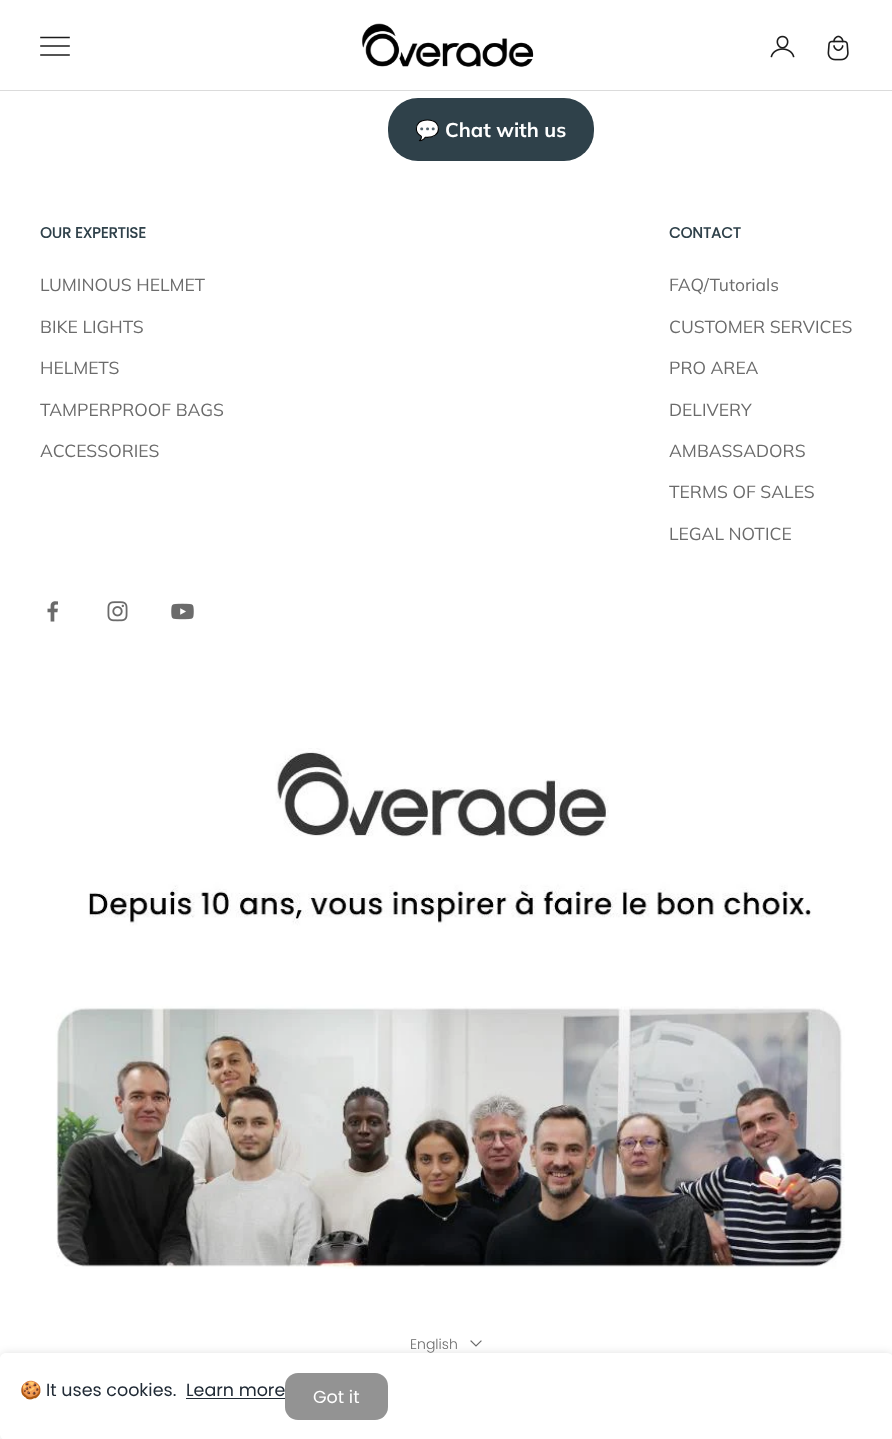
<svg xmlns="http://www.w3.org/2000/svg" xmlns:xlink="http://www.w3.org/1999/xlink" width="892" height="1439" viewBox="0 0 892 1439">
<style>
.cls-1{font:bold 20px Noto Color Emoji;fill:#ffffff}
.cls-2{font:bold 20px Muli;fill:#ffffff}
.cls-3{font:bold 15px Poppins;fill:#2f414a}
.cls-4{font:17.5px Muli;fill:#6b6b6b}
.cls-5{font:300 14px Poppins;fill:#6b6b6b}
.cls-6{font:17.5px Noto Color Emoji;fill:#212b36}
.cls-7{font:17.5px Poppins;fill:#212b36}
.cls-8{font:17.5px Poppins;fill:#ffffff}
</style>
<defs>
<clipPath id="clip1"><path d="M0 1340H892V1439H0ZM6 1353H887C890.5 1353 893 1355.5 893 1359V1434C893 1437.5 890.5 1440 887 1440H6C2.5 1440 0 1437.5 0 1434V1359C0 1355.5 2.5 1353 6 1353Z" clip-rule="evenodd"/></clipPath>
</defs>
<rect width="100%" height="100%" fill="#ffffff"/>
<rect fill="#dbdbdb" x="0" y="90" width="892" height="1"/>
<path fill="none" stroke="#1c1c1c" stroke-width="1.6" stroke-linecap="square" d="M41 55H69M41 46H69M41 37.5H69"/>
<image xlink:href="image0.png" x="362" y="23" width="172" height="44"/>
<image xlink:href="image1.png" x="770" y="35" width="25" height="23"/>
<image xlink:href="image2.png" x="827" y="35" width="22" height="26"/>
<rect fill="#2f414a" x="388" y="98" width="206" height="63" rx="30"/>
<image xlink:href="image3.png" x="47" y="601" width="11" height="21"/>
<image xlink:href="image4.png" x="107" y="601" width="21" height="21"/>
<image xlink:href="image5.png" x="171" y="603" width="23" height="17"/>
<image xlink:href="image6.png" x="55" y="748" width="790" height="521"/>
<path fill="none" stroke="#6b6b6b" stroke-width="1.2" stroke-linecap="square" d="M471 1341L476 1346L481 1341"/>
<g clip-path="url(#clip1)">
<rect fill="#000000" fill-opacity="0.12" filter="blur(4px)" x="0" y="1353" width="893" height="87" rx="6"/>
</g>
<rect fill="#212b36" x="186" y="1398" width="99" height="1"/>
<rect fill="#939393" x="285" y="1373" width="103" height="47" rx="13"/>
<text class="cls-1" x="415" y="137">💬</text>
<text class="cls-2" x="445" y="137">Chat with us</text>
<text class="cls-3" x="40" y="238">OUR EXPERTISE</text>
<text class="cls-4" x="40" y="291">LUMINOUS HELMET</text>
<text class="cls-4" x="40" y="333">BIKE LIGHTS</text>
<text class="cls-4" x="40" y="374">HELMETS</text>
<text class="cls-4" x="40" y="416">TAMPERPROOF BAGS</text>
<text class="cls-4" x="40" y="457">ACCESSORIES</text>
<text class="cls-3" x="669" y="238">CONTACT</text>
<text class="cls-4" x="669" y="291">FAQ/Tutorials</text>
<text class="cls-4" x="669" y="333">CUSTOMER SERVICES</text>
<text class="cls-4" x="669" y="374">PRO AREA</text>
<text class="cls-4" x="669" y="416">DELIVERY</text>
<text class="cls-4" x="669" y="457">AMBASSADORS</text>
<text class="cls-4" x="669" y="498">TERMS OF SALES</text>
<text class="cls-4" x="669" y="540">LEGAL NOTICE</text>
<text class="cls-5" x="410" y="1349">English</text>
<text class="cls-6" x="20" y="1396">🍪</text>
<text class="cls-7" x="46" y="1396">It uses cookies.</text>
<text class="cls-7" x="186" y="1396">Learn more</text>
<text class="cls-8" x="313" y="1403">Got it</text>
</svg>
